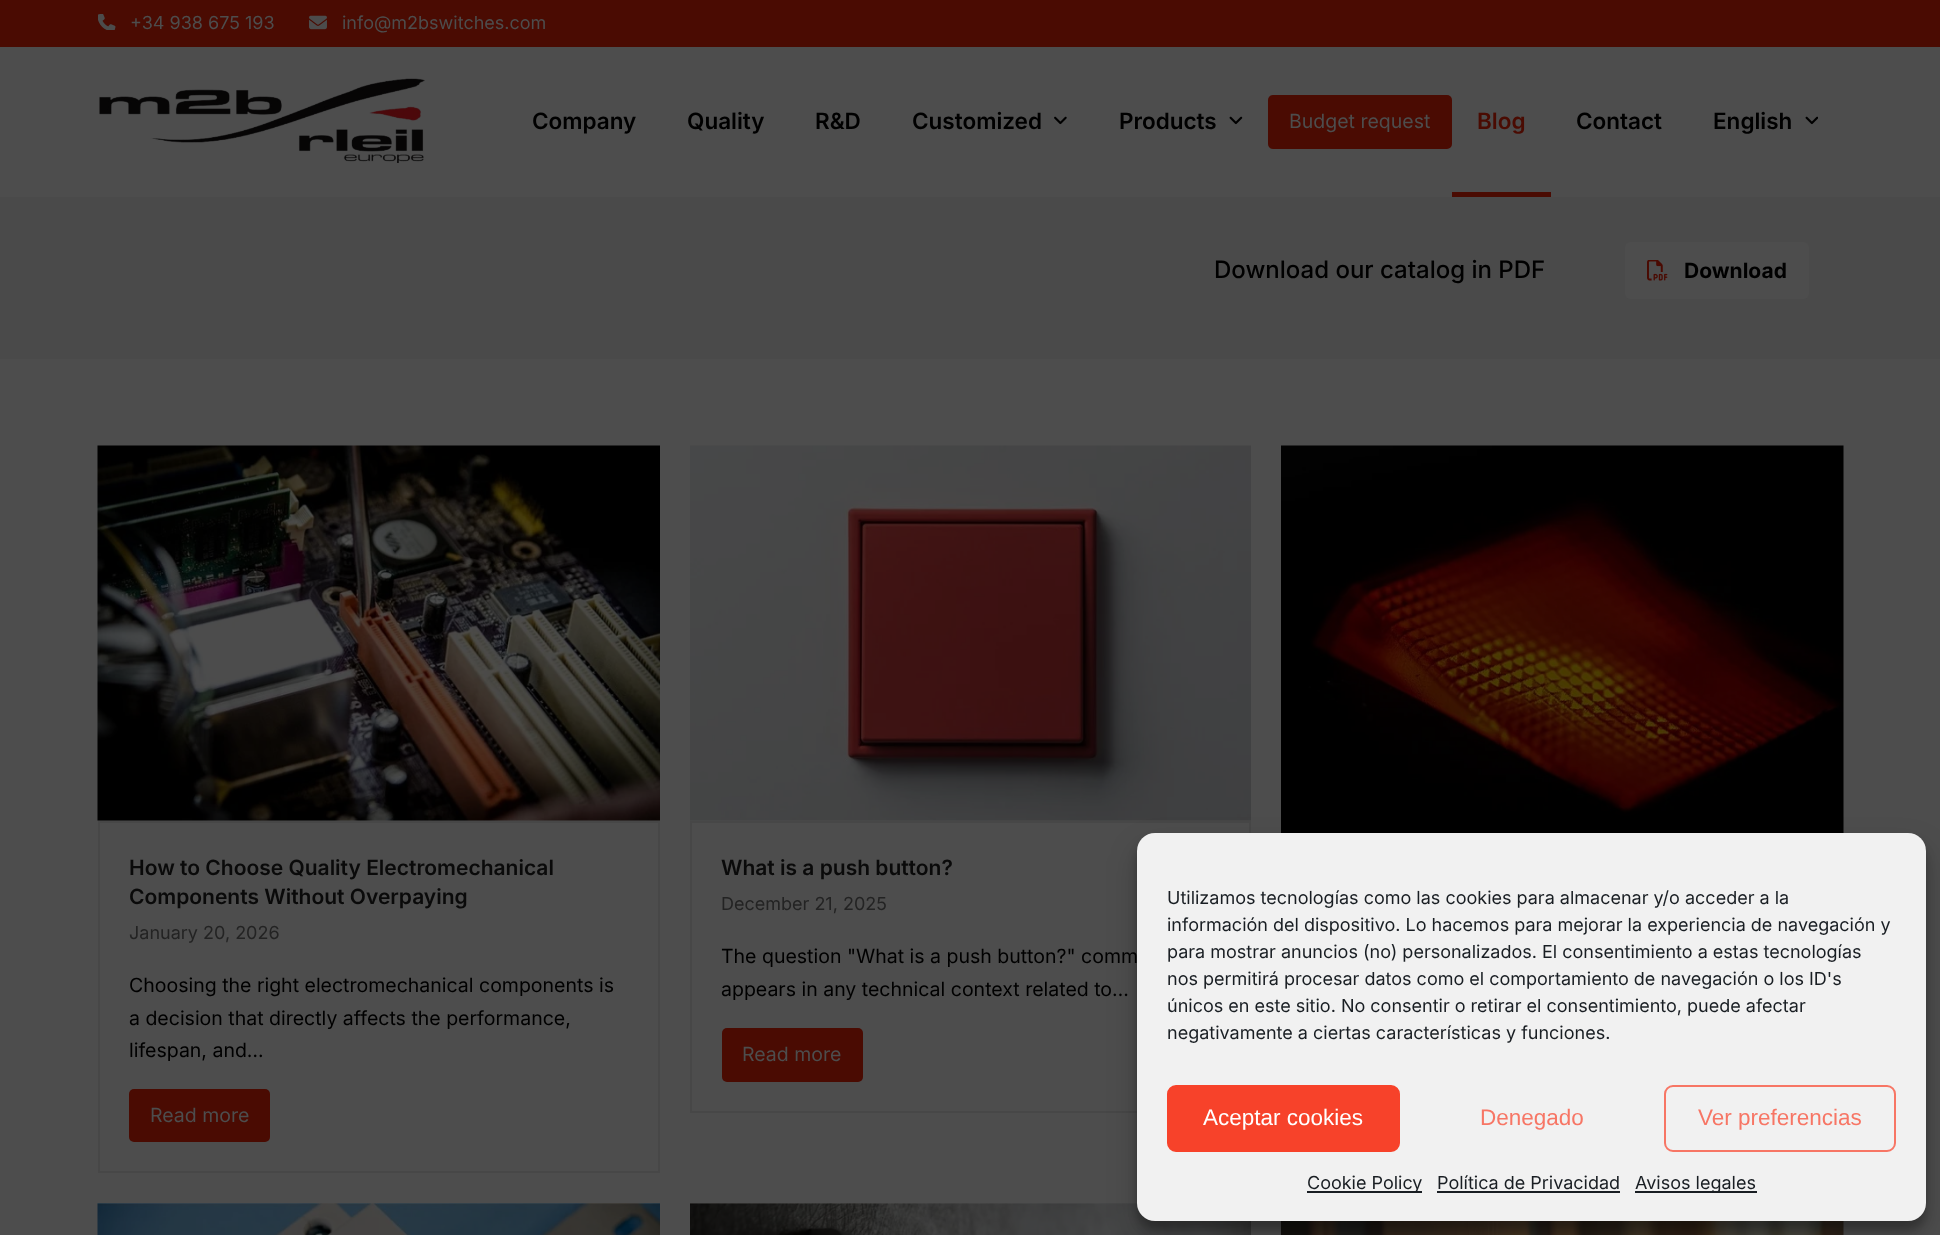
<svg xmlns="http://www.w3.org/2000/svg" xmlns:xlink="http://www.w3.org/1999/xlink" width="1940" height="1235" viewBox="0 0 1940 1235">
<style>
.cls-1{font:18px Inter;fill:#4d4d4d}
.cls-2{font:600 22.5px Inter;fill:#000000}
.cls-3{font:19.5px Inter;fill:#4d4d4d}
.cls-4{font:600 22.5px Inter;fill:#4a0b02}
.cls-5{font:500 24px Inter;fill:#000000}
.cls-6{font:bold 21px Inter;fill:#000000}
.cls-7{font:600 21px Inter;fill:#0a0a0a}
.cls-8{font:18px Inter;fill:#232323}
.cls-9{font:19.5px Inter;fill:#000000}
.cls-10{font:18px Inter;fill:#191e23}
.cls-11{font:22.5px Liberation Sans;fill:#ffffff}
.cls-12{font:22.5px Liberation Sans;fill:#f77665}
</style>
<rect width="100%" height="100%" fill="#4d4d4d"/>
<rect fill="#4a0b02" x="0" y="0" width="1940" height="47"/>
<image xlink:href="image0.png" x="98" y="14" width="18" height="16"/>
<image xlink:href="image1.png" x="309" y="15" width="18" height="15"/>
<image xlink:href="image2.png" x="99" y="78" width="326" height="85"/>
<image xlink:href="image3.png" x="1054" y="116" width="13" height="9"/>
<image xlink:href="image4.png" x="1229" y="116" width="14" height="9"/>
<rect fill="#4a0b02" x="1268" y="95" width="184" height="54" rx="5"/>
<rect fill="#4a0b02" x="1452" y="192" width="99" height="5"/>
<image xlink:href="image5.png" x="1805" y="116" width="13" height="9"/>
<rect fill="#4a4a4a" x="0" y="197" width="1940" height="162"/>
<rect fill="#4d4d4d" x="1625" y="242" width="184" height="57" rx="5"/>
<image xlink:href="image6.png" x="1647" y="260" width="21" height="21"/>
<image xlink:href="image7.png" x="1281" y="445" width="563" height="388"/>
<image xlink:href="image8.png" x="97" y="445" width="563" height="376"/>
<rect fill="none" stroke="#474747" stroke-width="2" x="99" y="822" width="560" height="350"/>
<rect fill="#4a0b02" x="129" y="1089" width="141" height="53" rx="5"/>
<image xlink:href="image9.png" x="690" y="445" width="561" height="376"/>
<rect fill="none" stroke="#474747" stroke-width="2" x="691" y="822" width="559" height="290"/>
<rect fill="#4a0b02" x="722" y="1028" width="141" height="54" rx="5"/>
<image xlink:href="image10.png" x="97" y="1203" width="563" height="32"/>
<image xlink:href="image11.png" x="690" y="1203" width="561" height="32"/>
<image xlink:href="image12.png" x="1281" y="1221" width="563" height="14"/>
<rect fill="#000000" fill-opacity="0.23" filter="blur(4.5px)" x="1137" y="842" width="789" height="388" rx="18"/>
<rect fill="#000000" fill-opacity="0.19" filter="blur(15px)" x="1137" y="848" width="789" height="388" rx="18"/>
<rect fill="#f1f1f1" x="1137" y="833" width="789" height="388" rx="18"/>
<rect fill="#f7422a" stroke="#f7422a" stroke-width="2" x="1168" y="1086" width="231" height="65" rx="8"/>
<rect fill="none" stroke="#f77665" stroke-width="2" x="1665" y="1086" width="230" height="65" rx="8"/>
<rect fill="#191e23" x="1307" y="1191" width="115" height="2"/>
<rect fill="#191e23" x="1437" y="1191" width="183" height="2"/>
<rect fill="#191e23" x="1635" y="1191" width="122" height="2"/>
<text class="cls-1" x="130" y="29">+34 938 675 193</text>
<text class="cls-1" x="342" y="29">info@m2bswitches.com</text>
<text class="cls-2" x="532" y="129">Company</text>
<text class="cls-2" x="687" y="129">Quality</text>
<text class="cls-2" x="815" y="129">R&amp;D</text>
<text class="cls-2" x="912" y="129">Customized</text>
<text class="cls-2" x="1119" y="129">Products</text>
<text class="cls-3" x="1289" y="128">Budget request</text>
<text class="cls-4" x="1477" y="129">Blog</text>
<text class="cls-2" x="1576" y="129">Contact</text>
<text class="cls-2" x="1713" y="129">English</text>
<text class="cls-5" x="1214" y="278">Download our catalog in PDF</text>
<text class="cls-6" x="1684" y="278">Download</text>
<text class="cls-7"><tspan x="129" y="875">How to Choose Quality Electromechanical</tspan><tspan x="129" y="904">Components Without Overpaying</tspan></text>
<text class="cls-8" x="129" y="939">January 20, 2026</text>
<text class="cls-9"><tspan x="129" y="992">Choosing the right electromechanical components is</tspan><tspan x="129" y="1025">a decision that directly affects the performance,</tspan><tspan x="129" y="1057">lifespan, and…</tspan></text>
<text class="cls-3" x="150" y="1122">Read more</text>
<text class="cls-7" x="721" y="875">What is a push button?</text>
<text class="cls-8" x="721" y="910">December 21, 2025</text>
<text class="cls-9"><tspan x="721" y="963">The question "What is a push button?" comm</tspan><tspan x="721" y="996">appears in any technical context related to…</tspan></text>
<text class="cls-3" x="742" y="1061">Read more</text>
<text class="cls-10"><tspan x="1167" y="904">Utilizamos tecnologías como las cookies para almacenar y/o acceder a la</tspan><tspan x="1167" y="931">información del dispositivo. Lo hacemos para mejorar la experiencia de navegación y</tspan><tspan x="1167" y="958">para mostrar anuncios (no) personalizados. El consentimiento a estas tecnologías</tspan><tspan x="1167" y="985">nos permitirá procesar datos como el comportamiento de navegación o los ID's</tspan><tspan x="1167" y="1012">únicos en este sitio. No consentir o retirar el consentimiento, puede afectar</tspan><tspan x="1167" y="1039">negativamente a ciertas características y funciones.</tspan></text>
<text class="cls-11" x="1203" y="1125">Aceptar cookies</text>
<text class="cls-12" x="1480" y="1125">Denegado</text>
<text class="cls-12" x="1698" y="1125">Ver preferencias</text>
<text class="cls-10" x="1307" y="1189">Cookie Policy</text>
<text class="cls-10" x="1437" y="1189">Política de Privacidad</text>
<text class="cls-10" x="1635" y="1189">Avisos legales</text>
</svg>
